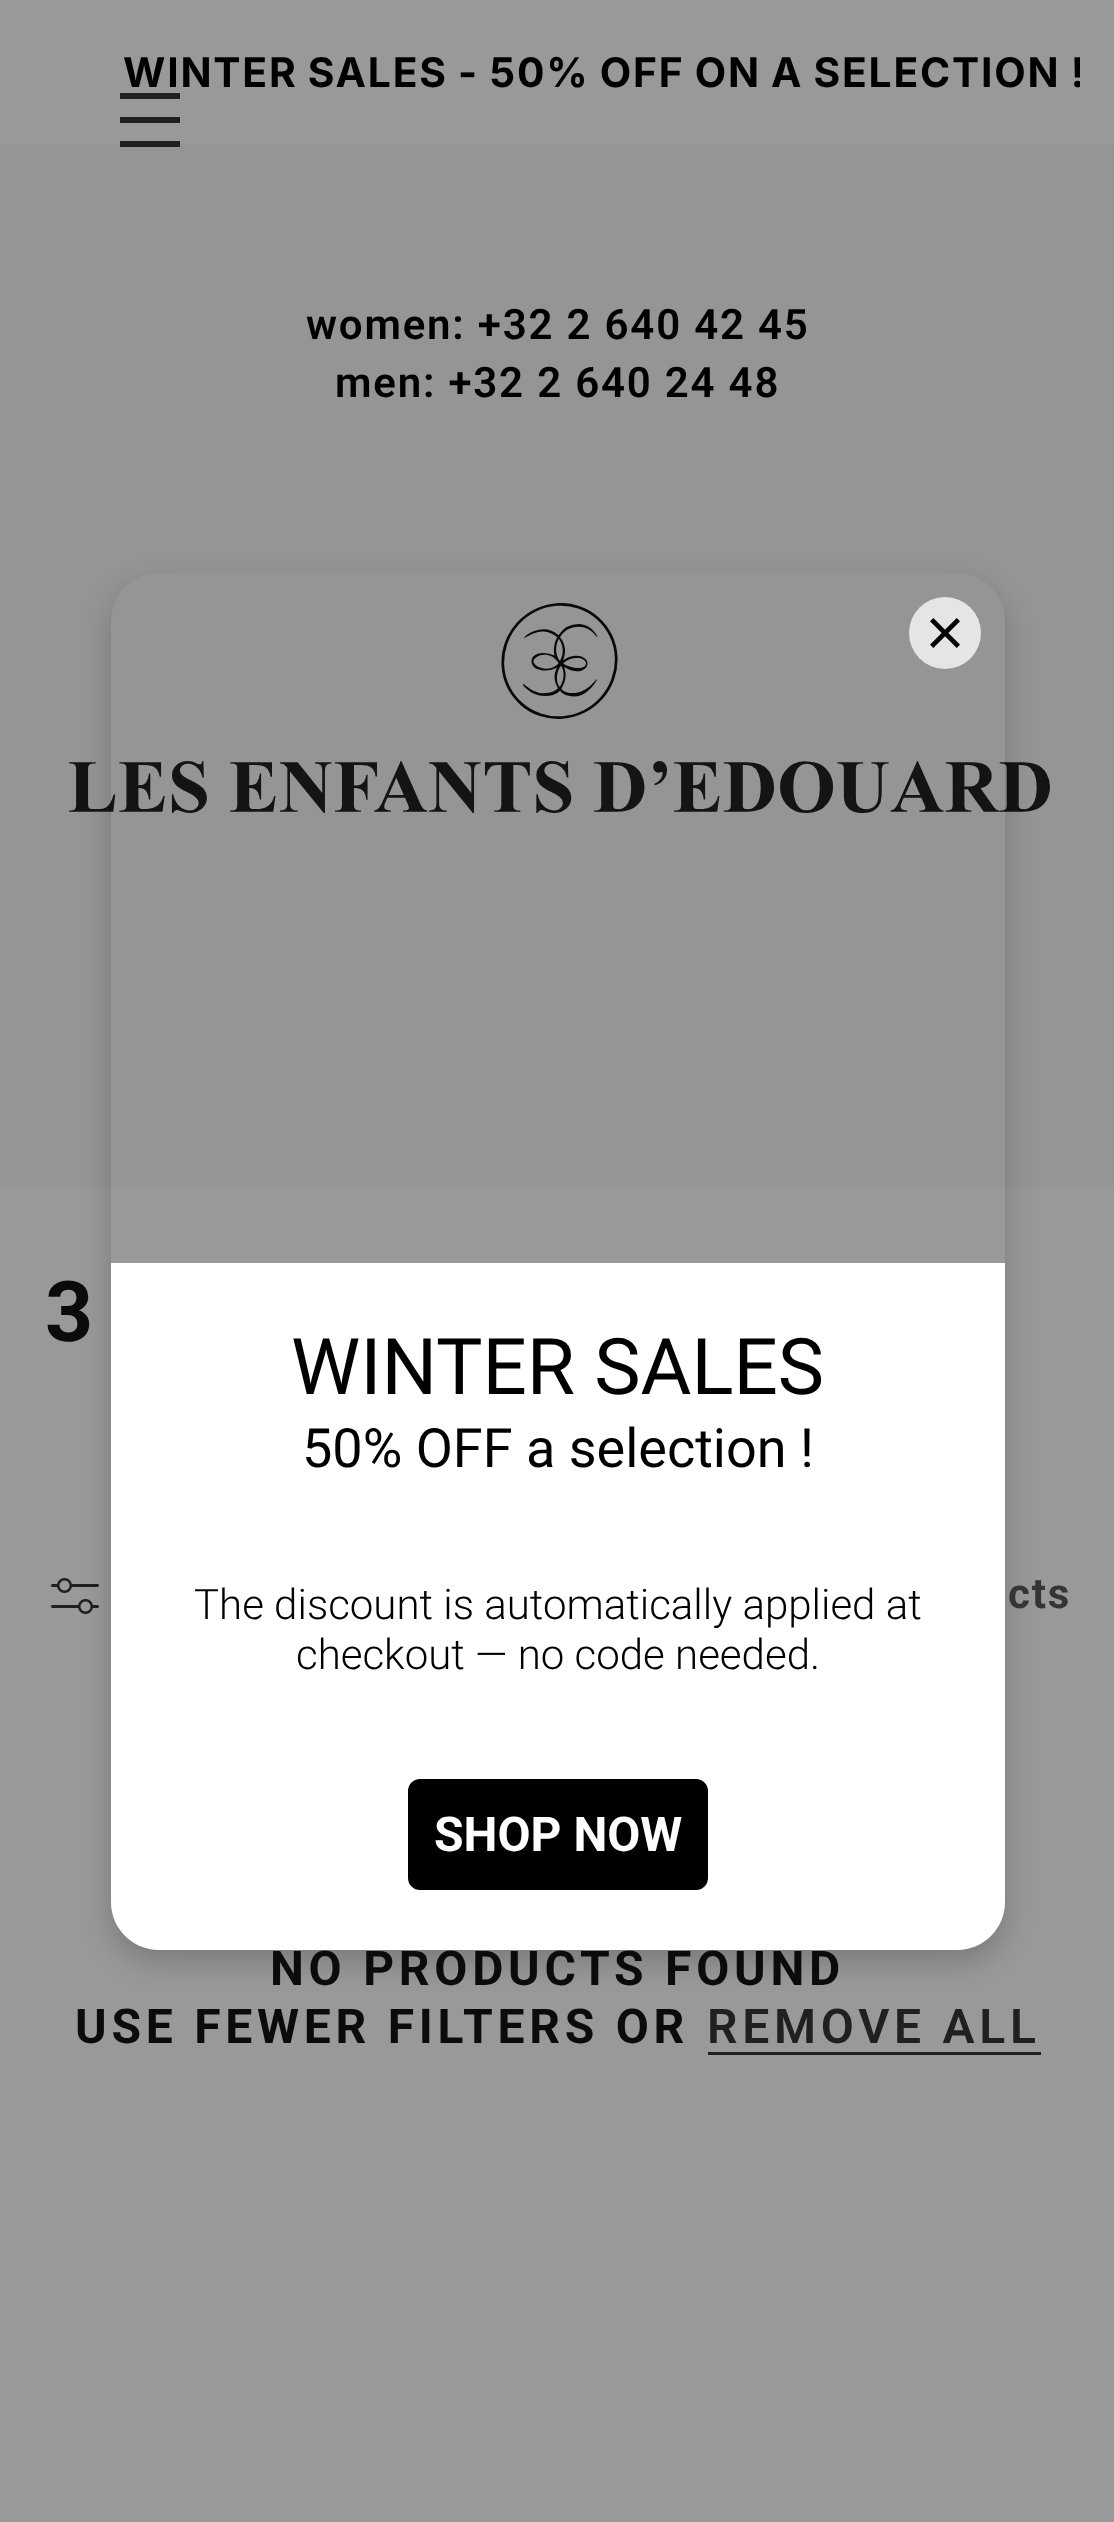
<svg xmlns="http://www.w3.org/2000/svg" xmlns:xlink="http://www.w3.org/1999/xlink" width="1114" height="2522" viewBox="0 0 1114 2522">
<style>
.cls-1{font:bold 40.8px Inter;letter-spacing:1.8px;fill:#000000}
.cls-2{font:600 42px Roboto;letter-spacing:1.8px;fill:#000000}
.cls-3{font:bold 84px Roboto;letter-spacing:4px;fill:#0b0b0b}
.cls-4{font:bold 42px Roboto;letter-spacing:1.8px;fill:#353535}
.cls-5{font:bold 48px Roboto;letter-spacing:4.75px;fill:#0b0b0b}
.cls-6{font:600 48px Roboto;letter-spacing:4.75px;fill:#202020}
.cls-7{font:78px Roboto;fill:#000000}
.cls-8{font:54px Roboto;fill:#000000}
.cls-9{font:300 42px Roboto;fill:#000000}
.cls-10{font:bold 48px Roboto;fill:#ffffff}
</style>
<defs>
<clipPath id="clip1"><path d="M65 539H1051V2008H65ZM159 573H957C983.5 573 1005 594.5 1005 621V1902C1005 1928.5 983.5 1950 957 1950H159C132.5 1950 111 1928.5 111 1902V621C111 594.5 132.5 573 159 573Z" clip-rule="evenodd"/></clipPath>
<clipPath id="clip2"><rect x="36" y="48" width="1044" height="48"/></clipPath>
</defs>
<rect width="100%" height="100%" fill="#999999"/>
<rect fill="#959595" x="0" y="144" width="1114" height="1044"/>
<rect fill="#1f1f1f" x="120" y="117" width="60" height="6"/>
<rect fill="#1f1f1f" x="120" y="93" width="60" height="6"/>
<rect fill="#1f1f1f" x="120" y="141" width="60" height="6"/>
<image xlink:href="image0.png" x="69" y="603" width="981" height="210"/>
<image xlink:href="image1.png" x="51" y="1578" width="48" height="36"/>
<rect fill="#202020" x="708" y="2052" width="333" height="3"/>
<g clip-path="url(#clip1)">
<rect fill="#000000" fill-opacity="0.2" filter="blur(15px)" x="111" y="585" width="894" height="1377" rx="48"/>
</g>
<circle fill="#e5e5e5" cx="945" cy="633" r="36"/>
<image xlink:href="image2.png" x="930" y="618" width="30" height="30"/>
<path fill="#ffffff" d="M111 1263H1005V1902C1005 1928.5 983.5 1950 957 1950H159C132.5 1950 111 1928.5 111 1902Z"/>
<rect fill="#000000" stroke="#000000" stroke-width="3" x="409.5" y="1780.5" width="297" height="108" rx="10.5"/>
<g clip-path="url(#clip2)">
<text class="cls-1" x="123" y="87" word-spacing="-1.25">WINTER SALES - 50% OFF ON A SELECTION !</text>
</g>
<text class="cls-2" x="306" y="339">women: +32 2 640 42 45</text>
<text class="cls-2" x="335" y="397">men: +32 2 640 24 48</text>
<text class="cls-3" x="45" y="1341">3</text>
<text class="cls-4" x="1008" y="1608">cts</text>
<text class="cls-5" x="270" y="1985">NO PRODUCTS FOUND</text>
<text class="cls-5" x="75" y="2043">USE FEWER FILTERS OR</text>
<text class="cls-6" x="707" y="2043">REMOVE ALL</text>
<text class="cls-7" x="291" y="1394">WINTER SALES</text>
<text class="cls-8" x="302" y="1467">50% OFF a selection !</text>
<text class="cls-9" x="194" y="1619">The discount is automatically applied at</text>
<text class="cls-9" x="296" y="1669">checkout — no code needed.</text>
<text class="cls-10" x="434" y="1851">SHOP NOW</text>
</svg>
